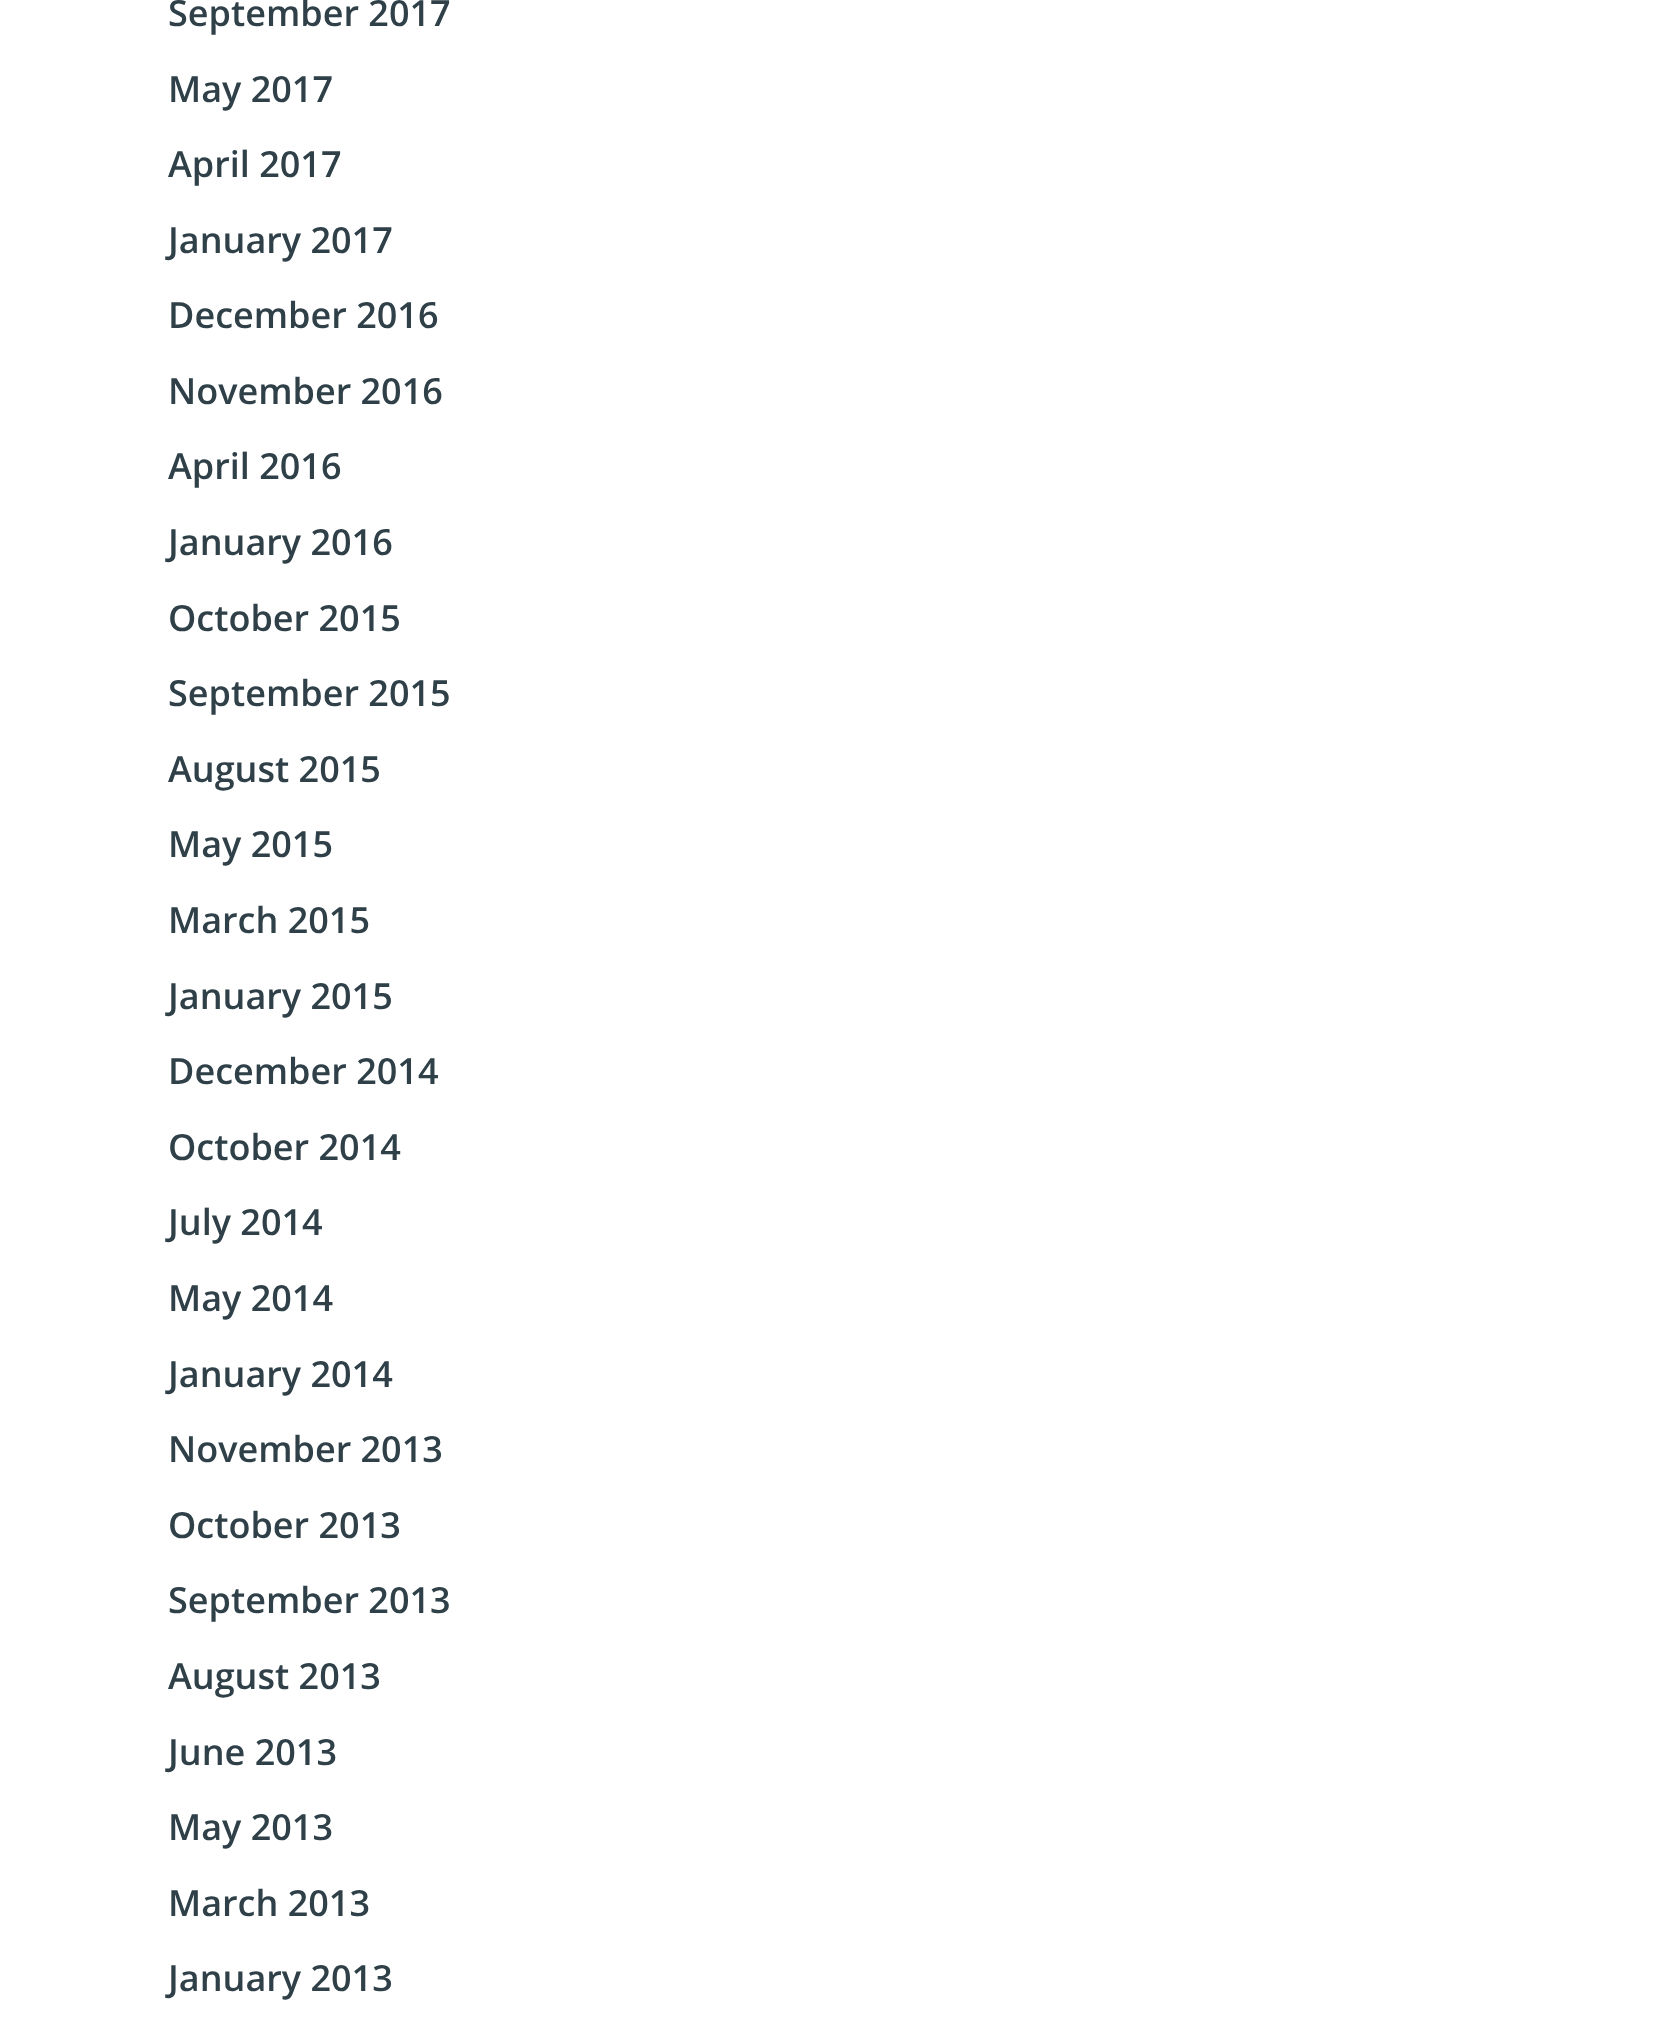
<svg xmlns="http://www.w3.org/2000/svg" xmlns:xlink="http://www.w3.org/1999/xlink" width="1679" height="2036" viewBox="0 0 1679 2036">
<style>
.cls-1{font:600 36px Open Sans;fill:#2f4048}
</style>
<rect width="100%" height="100%" fill="#ffffff"/>
<text class="cls-1" x="168" y="26">September 2017</text>
<text class="cls-1" x="168" y="102">May 2017</text>
<text class="cls-1" x="168" y="177">April 2017</text>
<text class="cls-1" x="168" y="253">January 2017</text>
<text class="cls-1" x="168" y="328">December 2016</text>
<text class="cls-1" x="168" y="404">November 2016</text>
<text class="cls-1" x="168" y="479">April 2016</text>
<text class="cls-1" x="168" y="555">January 2016</text>
<text class="cls-1" x="168" y="631">October 2015</text>
<text class="cls-1" x="168" y="706">September 2015</text>
<text class="cls-1" x="168" y="782">August 2015</text>
<text class="cls-1" x="168" y="857">May 2015</text>
<text class="cls-1" x="168" y="933">March 2015</text>
<text class="cls-1" x="168" y="1009">January 2015</text>
<text class="cls-1" x="168" y="1084">December 2014</text>
<text class="cls-1" x="168" y="1160">October 2014</text>
<text class="cls-1" x="168" y="1235">July 2014</text>
<text class="cls-1" x="168" y="1311">May 2014</text>
<text class="cls-1" x="168" y="1387">January 2014</text>
<text class="cls-1" x="168" y="1462">November 2013</text>
<text class="cls-1" x="168" y="1538">October 2013</text>
<text class="cls-1" x="168" y="1613">September 2013</text>
<text class="cls-1" x="168" y="1689">August 2013</text>
<text class="cls-1" x="168" y="1765">June 2013</text>
<text class="cls-1" x="168" y="1840">May 2013</text>
<text class="cls-1" x="168" y="1916">March 2013</text>
<text class="cls-1" x="168" y="1991">January 2013</text>
</svg>
